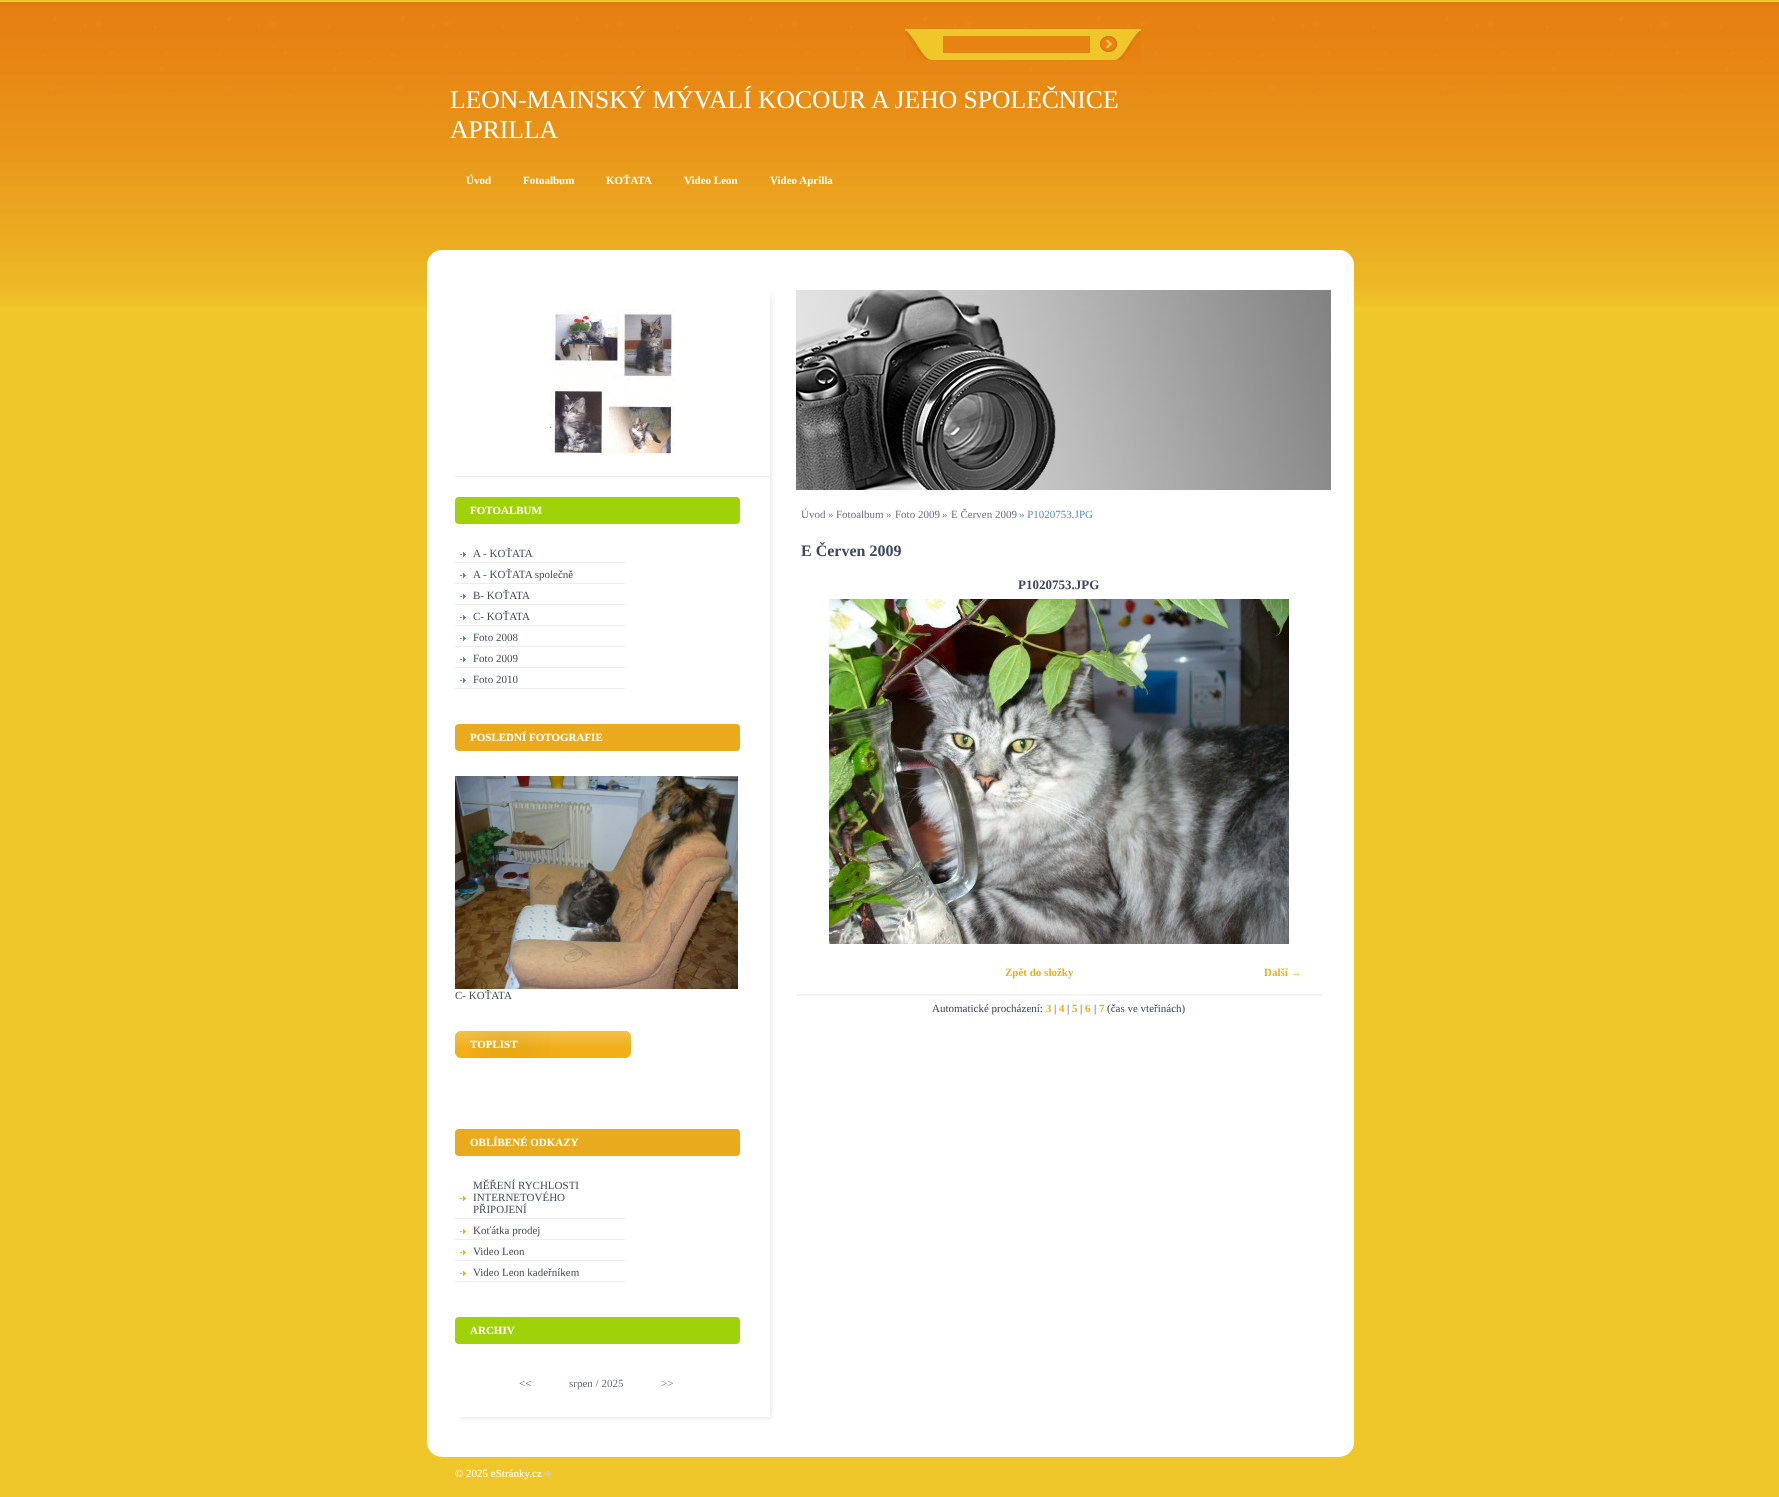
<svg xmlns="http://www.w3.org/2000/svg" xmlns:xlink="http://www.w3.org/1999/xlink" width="1779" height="1497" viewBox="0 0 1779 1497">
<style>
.cls-1{font:25.6px Liberation Serif;fill:#ffffff}
.cls-2{font:bold 11px Liberation Serif;fill:#ffffff}
.cls-3{font:11px Liberation Serif;fill:#434d5a}
.cls-4{font:11px Liberation Serif;fill:#6a6e79}
.cls-5{font:11px Liberation Serif;fill:#69708a}
.cls-6{font:11px Liberation Serif;fill:#578dbb}
.cls-7{font:bold 16px Liberation Serif;fill:#39475f}
.cls-8{font:bold 13px Liberation Serif;fill:#39475f}
.cls-9{font:bold 11px Liberation Serif;fill:#f1ae19}
.cls-10{font:11px Liberation Serif;fill:#39475f}
.cls-11{font:11px Liberation Serif;fill:#ffffff}
</style>
<defs>
<clipPath id="clip1"><path d="M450 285H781V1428H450ZM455 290H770V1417H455Z" clip-rule="evenodd"/></clipPath>
</defs>
<rect width="100%" height="100%" fill="#efc72a"/>
<image xlink:href="image0.png" x="0" y="2" width="1779" height="304"/>
<rect fill="#ffffff" x="427" y="250" width="927" height="1207" rx="15"/>
<g clip-path="url(#clip1)">
<rect fill="#e6e5e5" filter="blur(3px)" x="460" y="295" width="311" height="1123"/>
</g>
<rect fill="#ededeb" x="455" y="476" width="315" height="1"/>
<image xlink:href="image1.png" x="550" y="309" width="125" height="148"/>
<image xlink:href="image2.png" x="905" y="29" width="236" height="31"/>
<rect fill="#e78312" x="943" y="36" width="147" height="17"/>
<image xlink:href="image3.png" x="1100" y="36" width="17" height="16"/>
<rect fill="#a0d20a" x="455" y="497" width="285" height="27" rx="4"/>
<image xlink:href="image4.png" x="460" y="552" width="6" height="5"/>
<rect fill="#ededeb" x="455" y="562" width="170" height="1"/>
<image xlink:href="image4.png" x="460" y="573" width="6" height="5"/>
<rect fill="#ededeb" x="455" y="583" width="170" height="1"/>
<image xlink:href="image4.png" x="460" y="594" width="6" height="5"/>
<rect fill="#ededeb" x="455" y="604" width="170" height="1"/>
<image xlink:href="image4.png" x="460" y="615" width="6" height="5"/>
<rect fill="#ededeb" x="455" y="625" width="170" height="1"/>
<image xlink:href="image4.png" x="460" y="636" width="6" height="5"/>
<rect fill="#ededeb" x="455" y="646" width="170" height="1"/>
<image xlink:href="image4.png" x="460" y="657" width="6" height="5"/>
<rect fill="#ededeb" x="455" y="667" width="170" height="1"/>
<image xlink:href="image4.png" x="460" y="678" width="6" height="5"/>
<rect fill="#ededeb" x="455" y="688" width="170" height="1"/>
<rect fill="#e9aa1d" x="455" y="724" width="285" height="27" rx="4"/>
<image xlink:href="image5.png" x="455" y="776" width="283" height="213"/>
<image xlink:href="image6.png" x="455" y="1031" width="176" height="27"/>
<rect fill="#e9aa1d" x="455" y="1129" width="285" height="27" rx="4"/>
<image xlink:href="image7.png" x="460" y="1196" width="6" height="5"/>
<rect fill="#ededeb" x="455" y="1218" width="170" height="1"/>
<image xlink:href="image7.png" x="460" y="1229" width="6" height="5"/>
<rect fill="#ededeb" x="455" y="1239" width="170" height="1"/>
<image xlink:href="image7.png" x="460" y="1250" width="6" height="5"/>
<rect fill="#ededeb" x="455" y="1260" width="170" height="1"/>
<image xlink:href="image7.png" x="460" y="1271" width="6" height="5"/>
<rect fill="#ededeb" x="455" y="1281" width="170" height="1"/>
<rect fill="#a0d20a" x="455" y="1317" width="285" height="27" rx="4"/>
<image xlink:href="image8.png" x="796" y="290" width="535" height="200"/>
<image xlink:href="image9.png" x="829" y="599" width="460" height="345"/>
<rect fill="#f3f3f3" x="796" y="994" width="526" height="2"/>
<image xlink:href="image10.png" x="543" y="1470" width="9" height="8"/>
<text class="cls-1"><tspan x="450" y="108">LEON-MAINSKÝ MÝVALÍ KOCOUR A JEHO SPOLEČNICE</tspan><tspan x="450" y="138">APRILLA</tspan></text>
<text class="cls-2" x="466" y="184">Úvod</text>
<text class="cls-2" x="523" y="184">Fotoalbum</text>
<text class="cls-2" x="606" y="184">KOŤATA</text>
<text class="cls-2" x="684" y="184">Video Leon</text>
<text class="cls-2" x="770" y="184">Video Aprilla</text>
<text class="cls-2" x="470" y="514">FOTOALBUM</text>
<text class="cls-3"><tspan x="473" y="557">A - KOŤATA</tspan><tspan x="473" y="578">A - KOŤATA společně</tspan><tspan x="473" y="599">B- KOŤATA</tspan><tspan x="473" y="620">C- KOŤATA</tspan><tspan x="473" y="641">Foto 2008</tspan><tspan x="473" y="662">Foto 2009</tspan><tspan x="473" y="683">Foto 2010</tspan></text>
<text class="cls-2" x="470" y="741">POSLEDNÍ FOTOGRAFIE</text>
<text class="cls-3" x="455" y="999">C- KOŤATA</text>
<text class="cls-2" x="470" y="1048">TOPLIST</text>
<text class="cls-2" x="470" y="1146">OBLÍBENÉ ODKAZY</text>
<text class="cls-3"><tspan x="473" y="1189">MĚŘENÍ RYCHLOSTI</tspan><tspan x="473" y="1201">INTERNETOVÉHO</tspan><tspan x="473" y="1213">PŘIPOJENÍ</tspan><tspan x="473" y="1234">Koťátka prodej</tspan><tspan x="473" y="1255">Video Leon</tspan><tspan x="473" y="1276">Video Leon kadeřníkem</tspan></text>
<text class="cls-2" x="470" y="1334">ARCHIV</text>
<text class="cls-3" x="519" y="1387">&lt;&lt;</text>
<text class="cls-4" x="569" y="1387">srpen / 2025</text>
<text class="cls-4" x="661" y="1387">&gt;&gt;</text>
<text class="cls-5" x="801" y="518">Úvod</text>
<text class="cls-6" x="828" y="518">»</text>
<text class="cls-5" x="836" y="518">Fotoalbum</text>
<text class="cls-6" x="886" y="518">»</text>
<text class="cls-5" x="895" y="518">Foto 2009</text>
<text class="cls-6" x="942" y="518">»</text>
<text class="cls-5" x="951" y="518">E Červen 2009</text>
<text class="cls-6" x="1019" y="518">» P1020753.JPG</text>
<text class="cls-7" x="801" y="556">E Červen 2009</text>
<text class="cls-8" x="1018" y="589">P1020753.JPG</text>
<text class="cls-9" x="1005" y="976">Zpět do složky</text>
<text class="cls-9" x="1264" y="976">Další →</text>
<text class="cls-10" x="932" y="1012">Automatické procházení:</text>
<text class="cls-9" x="1046" y="1012">3</text>
<text class="cls-10" x="1054" y="1012">|</text>
<text class="cls-9" x="1059" y="1012">4</text>
<text class="cls-10" x="1067" y="1012">|</text>
<text class="cls-9" x="1072" y="1012">5</text>
<text class="cls-10" x="1080" y="1012">|</text>
<text class="cls-9" x="1085" y="1012">6</text>
<text class="cls-10" x="1094" y="1012">|</text>
<text class="cls-9" x="1099" y="1012">7</text>
<text class="cls-10" x="1107" y="1012">(čas ve vteřinách)</text>
<text class="cls-11" x="455" y="1477">© 2025 eStránky.cz</text>
</svg>
